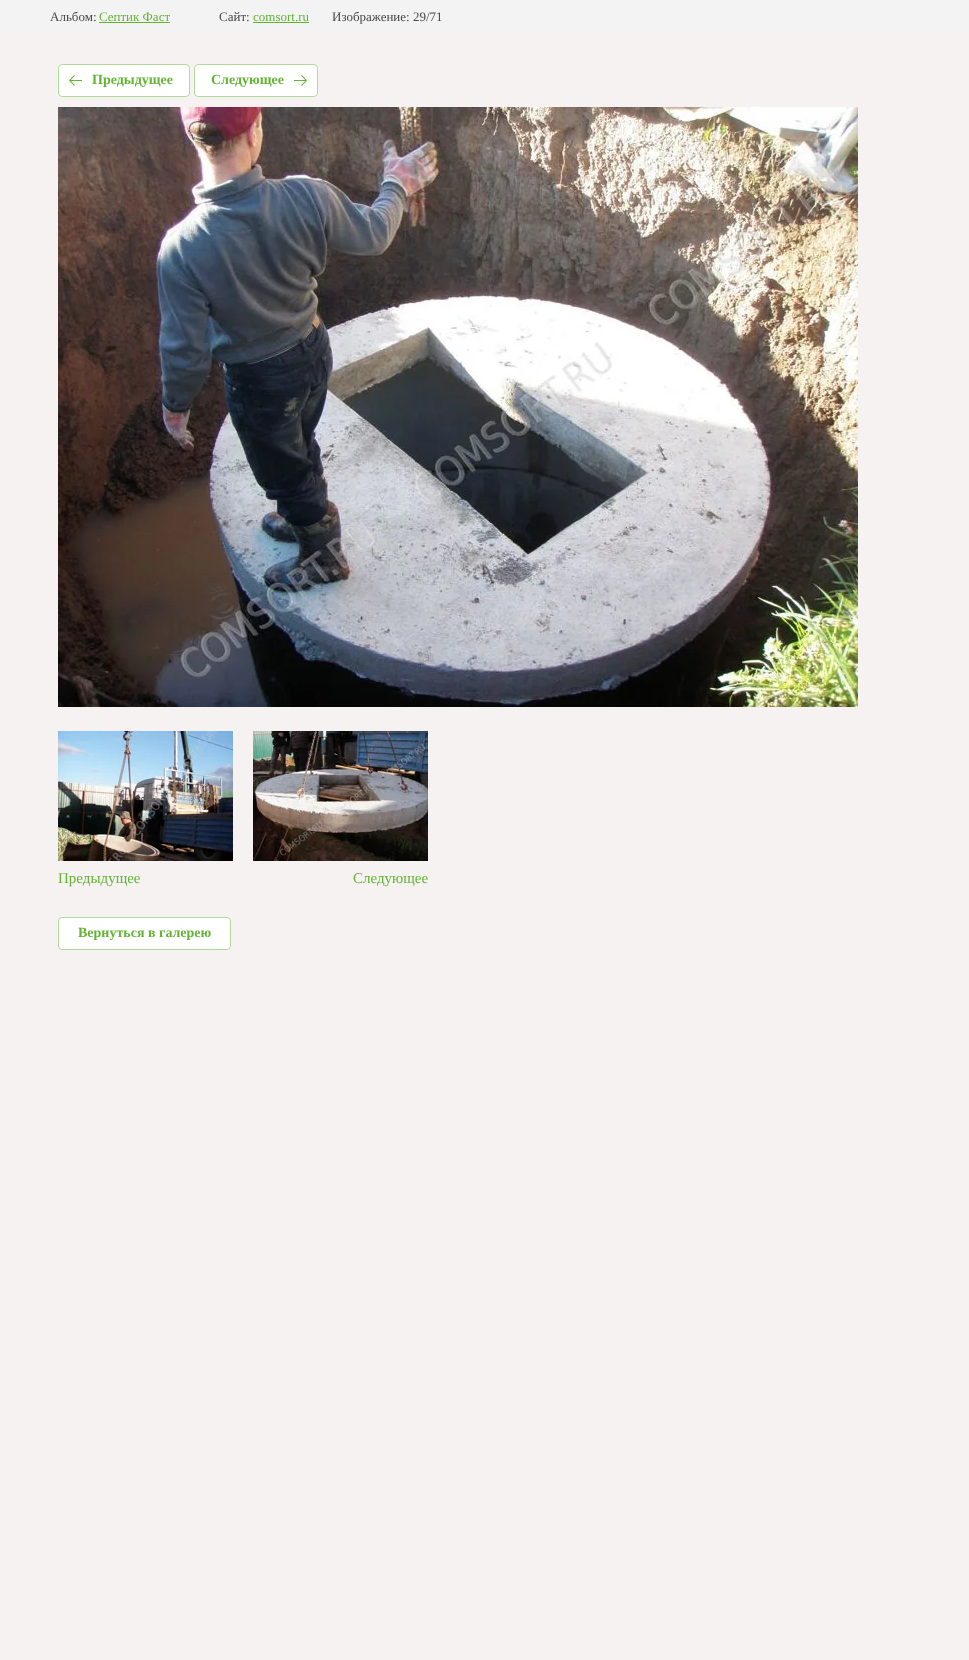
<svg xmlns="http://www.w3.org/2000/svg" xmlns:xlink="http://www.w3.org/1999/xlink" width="969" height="1660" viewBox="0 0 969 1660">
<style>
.cls-1{font:13px Liberation Serif;fill:#484848}
.cls-2{font:13px Liberation Serif;fill:#63b435}
.cls-3{font:bold 14px Liberation Serif;fill:#63b435}
.cls-4{font:15px Liberation Serif;fill:#63b435}
</style>
<rect width="100%" height="100%" fill="#f6f2f2"/>
<rect fill="#f3f3f3" x="0" y="0" width="969" height="32"/>
<rect fill="#63b435" x="99" y="22" width="71" height="1"/>
<rect fill="#63b435" x="253" y="22" width="56" height="1"/>
<rect fill="#ffffff" x="58" y="64" width="132" height="33" rx="4"/>
<rect fill="none" stroke="#63b435" stroke-opacity="0.5" x="58.5" y="64.5" width="131" height="32" rx="3.5"/>
<image xlink:href="image0.png" x="69" y="75" width="13" height="11"/>
<rect fill="#ffffff" x="194" y="64" width="124" height="33" rx="4"/>
<rect fill="none" stroke="#63b435" stroke-opacity="0.5" x="194.5" y="64.5" width="123" height="32" rx="3.5"/>
<image xlink:href="image1.png" x="294" y="75" width="13" height="11"/>
<image xlink:href="image2.png" x="58" y="107" width="800" height="600"/>
<image xlink:href="image3.png" x="58" y="731" width="175" height="130"/>
<image xlink:href="image4.png" x="253" y="731" width="175" height="130"/>
<rect fill="#ffffff" x="58" y="917" width="173" height="33" rx="4"/>
<rect fill="none" stroke="#63b435" stroke-opacity="0.5" x="58.5" y="917.5" width="172" height="32" rx="3.5"/>
<text class="cls-1" x="50" y="21">Альбом:</text>
<text class="cls-2" x="99" y="21">Cептик Фаст</text>
<text class="cls-1" x="219" y="21">Сайт:</text>
<text class="cls-2" x="253" y="21">comsort.ru</text>
<text class="cls-1" x="332" y="21">Изображение: 29/71</text>
<text class="cls-3" x="92" y="84">Предыдущее</text>
<text class="cls-3" x="211" y="84">Следующее</text>
<text class="cls-4" x="58" y="883">Предыдущее</text>
<text class="cls-4" x="353" y="883">Следующее</text>
<text class="cls-3" x="78" y="937">Вернуться в галерею</text>
</svg>
